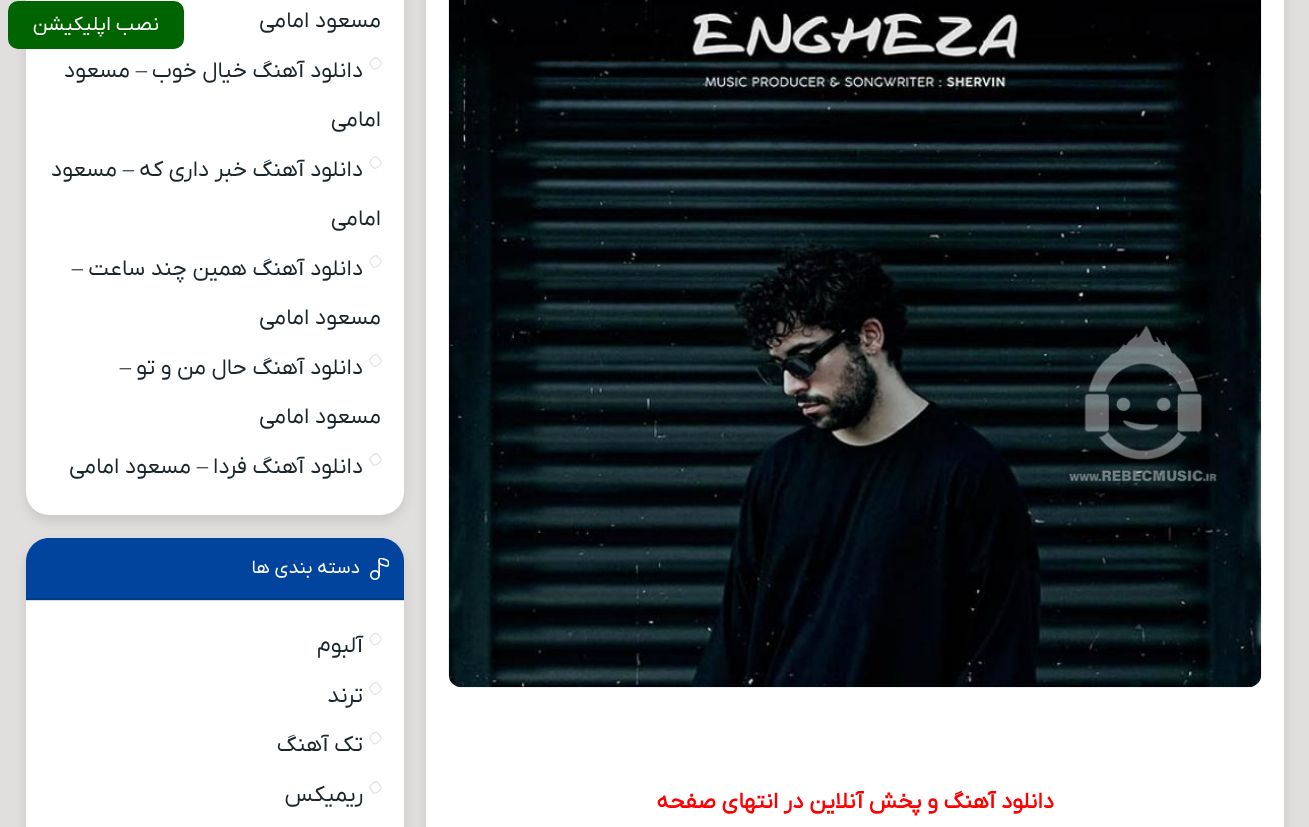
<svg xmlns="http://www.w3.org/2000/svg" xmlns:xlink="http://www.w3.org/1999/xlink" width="1309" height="827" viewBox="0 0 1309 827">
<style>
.cls-1{font:bold 22.5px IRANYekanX;direction:rtl;fill:#ff0000}
.cls-2{font:22.5px IRANYekanX;direction:rtl;fill:#1b262c}
.cls-3{font:22.5px Liberation Serif;direction:rtl;fill:#1b262c}
.cls-4{font:18.75px IRANYekanX;direction:rtl;fill:#ffffff}
.cls-5{font:20px IRANYekanX;direction:rtl;fill:#ffffff}
</style>
<rect width="100%" height="100%" fill="#e0dfde"/>
<rect fill="#000000" fill-opacity="0.1" filter="blur(6px)" x="426" y="-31" width="858" height="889" rx="13"/>
<rect fill="#ffffff" x="426" y="0" width="858" height="827"/>
<image xlink:href="image0.png" x="448" y="0" width="814" height="688"/>
<rect fill="#000000" fill-opacity="0.1" filter="blur(6px)" x="26" y="-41" width="378" height="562" rx="23"/>
<rect fill="#ffffff" x="26" y="-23" width="378" height="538" rx="23"/>
<path fill="none" stroke="#e5e5e5" stroke-width="1.3" d="M377.5 58.5L381 62.5C382 64.5 380 66 379 67C377.5 68.5 375.5 70.5 373 68.5L370 65C369 62.5 370.5 61.5 372 60C373.5 58.5 375.5 56.5 377.5 58.5Z"/>
<path fill="none" stroke="#e5e5e5" stroke-width="1.3" d="M377.5 157.5L381 161.5C382 163.5 380 165 379 166C377.5 167.5 375.5 169.5 373 167.5L370 163.5C369 161.5 370.5 160.5 372 159C373.5 157.5 375.5 155.5 377.5 157.5Z"/>
<path fill="none" stroke="#e5e5e5" stroke-width="1.3" d="M377.5 256.5L381 260.5C382 262.5 380 264 379 265C377.5 266.5 375.5 268.5 373 266.5L370 262.5C369 260.5 370.5 259.5 372 258C373.5 256.5 375.5 254.5 377.5 256.5Z"/>
<path fill="none" stroke="#e5e5e5" stroke-width="1.3" d="M377.5 355.5L381 359.5C382 361.5 380 363 379 364C377.5 365.5 375.5 367.5 373 365.5L370 361.5C369 359.5 370.5 358.5 372 357C373.5 355.5 375.5 353.5 377.5 355.5Z"/>
<path fill="none" stroke="#e5e5e5" stroke-width="1.3" d="M377.5 454.5L381 458.5C382 460.5 380 461.5 379 463C377.5 464.5 375.5 466.5 373 464.5L370 460.5C369 458.5 370.5 457.5 372 456C373.5 454.5 375.5 452.5 377.5 454.5Z"/>
<rect fill="#000000" fill-opacity="0.1" filter="blur(6px)" x="26" y="544" width="378" height="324" rx="23"/>
<rect fill="#ffffff" x="26" y="538" width="378" height="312" rx="23"/>
<path fill="#00449e" d="M49 538H381C393.5 538 404 548.5 404 561V600H26V561C26 548.5 36.5 538 49 538Z"/>
<rect fill="#000000" fill-opacity="0.15" x="26" y="598" width="378" height="3"/>
<image xlink:href="image1.png" x="370" y="558" width="19" height="22"/>
<path fill="none" stroke="#e5e5e5" stroke-width="1.3" d="M377.5 634L381 638C382 640 380 641 379 642.5C377.5 644 375.5 646 373 644L370 640C369 638 370.5 637 372 635.5C373.5 634 375.5 632 377.5 634ZM377.5 683.5L381 687.5C382 689.5 380 690.5 379 692C377.5 693.5 375.5 695.5 373 693.5L370 689.5C369 687.5 370.5 686.5 372 685C373.5 683.5 375.5 681.5 377.5 683.5Z"/>
<path fill="none" stroke="#e5e5e5" stroke-width="1.3" d="M377.5 733L381 737C382 739 380 740 379 741.5C377.5 743 375.5 745 373 743L370 739C369 737 370.5 736 372 734.5C373.5 733 375.5 731 377.5 733ZM377.5 782.5L381 786.5C382 788.5 380 789.5 379 791C377.5 792.5 375.5 794.5 373 792.5L370 788.5C369 786.5 370.5 785.5 372 784C373.5 782.5 375.5 780.5 377.5 782.5Z"/>
<rect fill="#006400" x="8" y="1" width="176" height="48" rx="10"/>
<text class="cls-1" x="1054" y="808">دانلود آهنگ و پخش آنلاین در انتهای صفحه</text>
<text class="cls-2" x="381" y="27">مسعود امامی</text>
<text class="cls-2" x="363" y="77">دانلود آهنگ خیال خوب</text>
<text class="cls-3" x="147" y="77">–</text>
<text class="cls-2" x="130" y="77">مسعود</text>
<text class="cls-2" x="381" y="126">امامی</text>
<text class="cls-2" x="363" y="176">دانلود آهنگ خبر داری که</text>
<text class="cls-3" x="134" y="176">–</text>
<text class="cls-2" x="117" y="176">مسعود</text>
<text class="cls-2" x="381" y="225">امامی</text>
<text class="cls-2" x="363" y="275">دانلود آهنگ همین چند ساعت</text>
<text class="cls-3" x="83" y="275">–</text>
<text class="cls-2" x="381" y="324">مسعود امامی</text>
<text class="cls-2" x="363" y="374">دانلود آهنگ حال من و تو</text>
<text class="cls-3" x="131" y="374">–</text>
<text class="cls-2" x="381" y="423">مسعود امامی</text>
<text class="cls-2" x="363" y="473">دانلود آهنگ فردا</text>
<text class="cls-3" x="208" y="473">–</text>
<text class="cls-2" x="191" y="473">مسعود امامی</text>
<text class="cls-4" x="360" y="573">دسته بندی ها</text>
<text class="cls-2" x="363" y="652">آلبوم</text>
<text class="cls-2" x="363" y="702">ترند</text>
<text class="cls-2" x="363" y="751">تک آهنگ</text>
<text class="cls-2" x="363" y="801">ریمیکس</text>
<text class="cls-5" x="159" y="30">نصب اپلیکیشن</text>
</svg>
